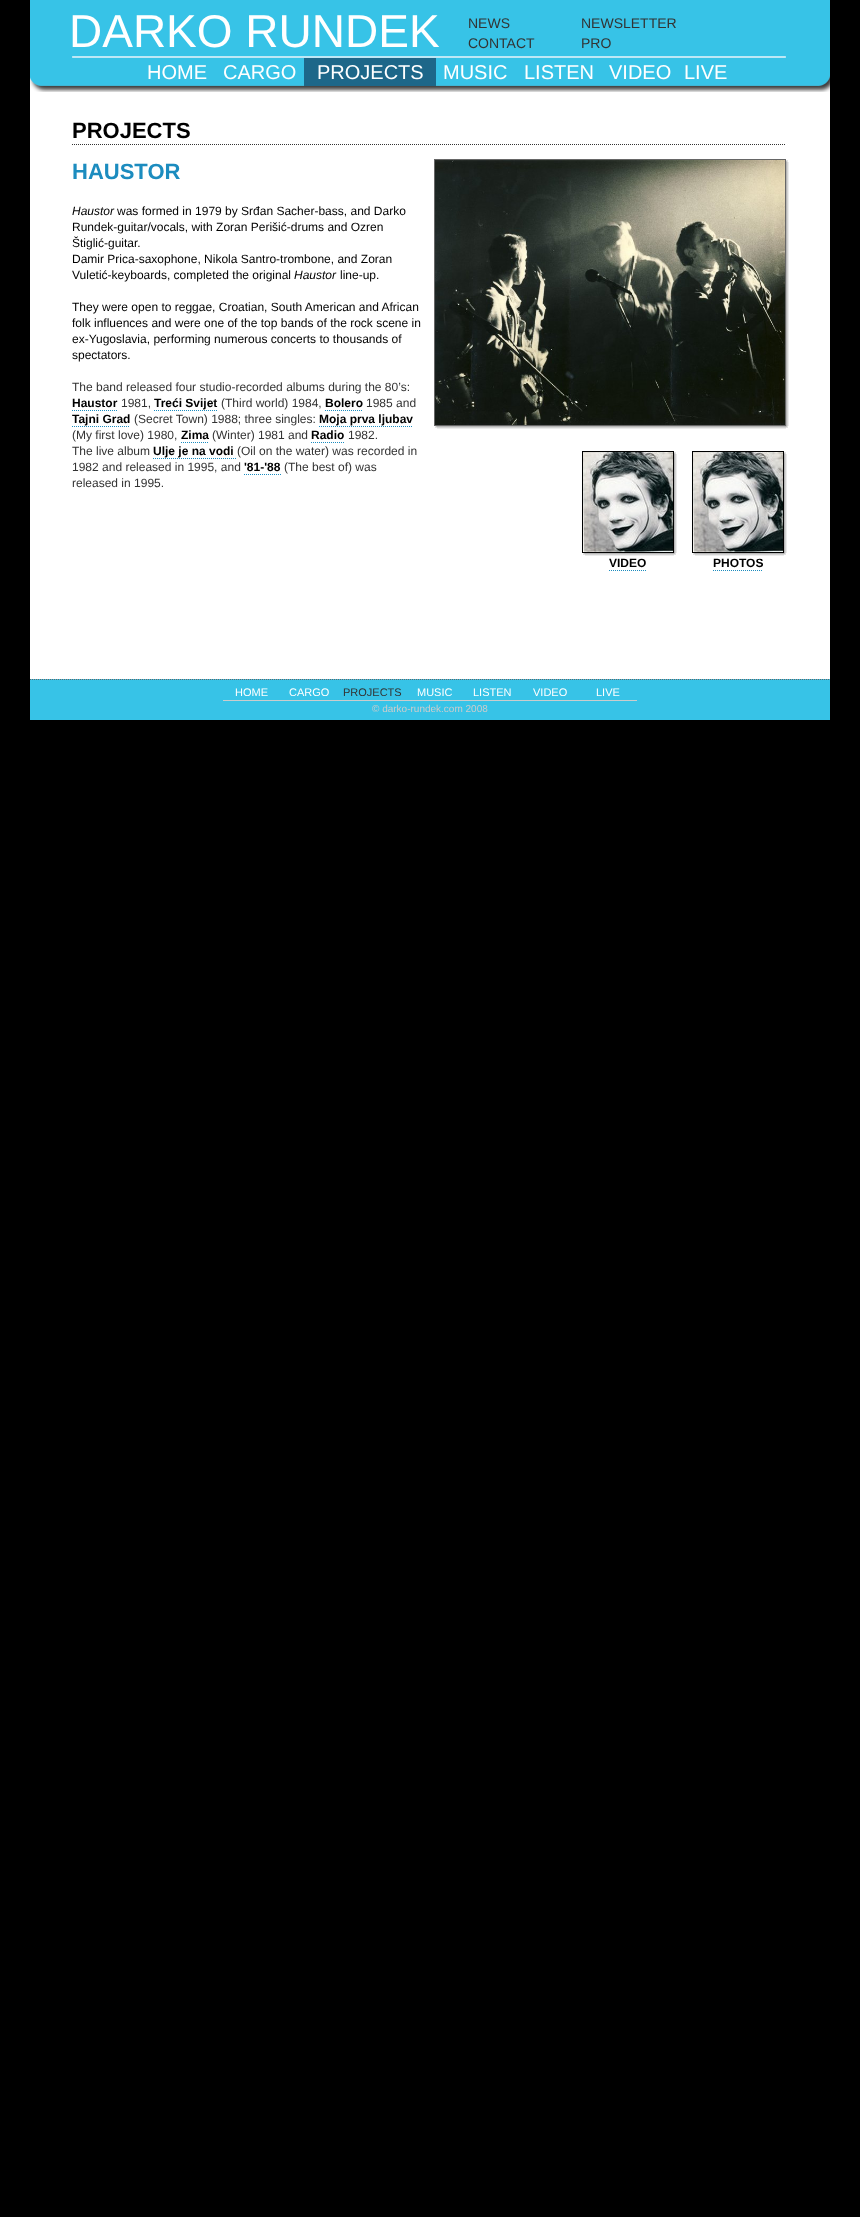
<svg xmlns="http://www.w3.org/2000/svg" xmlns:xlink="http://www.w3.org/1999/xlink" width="860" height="2217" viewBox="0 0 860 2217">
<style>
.cls-1{font:46px Liberation Sans;fill:#ffffff}
.cls-2{font:14px Liberation Sans;fill:#333333}
.cls-3{font:20px Liberation Sans;fill:#ffffff}
.cls-4{font:bold 22px Liberation Sans;fill:#000000}
.cls-5{font:bold 22px Liberation Sans;fill:#1c8cbf}
.cls-6{font:italic 12px Liberation Sans;fill:#000000}
.cls-7{font:12px Liberation Sans;fill:#000000}
.cls-8{font:12px Liberation Sans;fill:#333333}
.cls-9{font:bold 12px Liberation Sans;fill:#000000}
.cls-10{font:11px Liberation Sans;fill:#ffffff}
.cls-11{font:11px Liberation Sans;fill:#333333}
.cls-12{font:10px Liberation Sans;fill:#cccccc}
</style>
<rect width="100%" height="100%" fill="#000000"/>
<rect fill="#ffffff" x="30" y="92" width="800" height="587"/>
<rect fill="#ececec" x="585" y="555" width="89" height="1"/>
<rect fill="#ececec" x="676" y="454" width="1" height="99"/>
<rect fill="#ececec" x="695" y="555" width="89" height="1"/>
<rect fill="#ececec" x="786" y="454" width="1" height="99"/>
<rect fill="#ececec" x="437" y="428" width="349" height="1"/>
<rect fill="#ececec" x="788" y="162" width="1" height="264"/>
<image xlink:href="image0.png" x="30" y="0" width="800" height="92"/>
<rect fill="#1d6789" x="304" y="58" width="132" height="28"/>
<path fill="none" stroke="#333333" stroke-dasharray="1 1" d="M72 144.5H786"/>
<path fill="none" stroke="#1c8cbf" stroke-dasharray="1 1" d="M72 410.5H117"/>
<path fill="none" stroke="#1c8cbf" stroke-dasharray="1 1" d="M154 410.5H217"/>
<path fill="none" stroke="#1c8cbf" stroke-dasharray="1 1" d="M325 410.5H363"/>
<path fill="none" stroke="#1c8cbf" stroke-dasharray="1 1" d="M72 426.5H130"/>
<path fill="none" stroke="#1c8cbf" stroke-dasharray="1 1" d="M319 426.5H413"/>
<path fill="none" stroke="#1c8cbf" stroke-dasharray="1 1" d="M181 442.5H209"/>
<path fill="none" stroke="#1c8cbf" stroke-dasharray="1 1" d="M311 442.5H345"/>
<path fill="none" stroke="#1c8cbf" stroke-dasharray="1 1" d="M153 458.5H237"/>
<path fill="none" stroke="#1c8cbf" stroke-dasharray="1 1" d="M244 474.5H281"/>
<rect fill="#e3e3e3" x="435" y="160" width="353" height="268"/>
<rect fill="#c3c3c3" x="436" y="161" width="351" height="266"/>
<rect fill="none" stroke="#666666" x="434.5" y="159.5" width="351" height="266"/>
<rect fill="#d3d3d3" x="437" y="427" width="349" height="1"/>
<rect fill="#b6b6b6" x="437" y="426" width="349" height="1"/>
<rect fill="#d3d3d3" x="787" y="162" width="1" height="264"/>
<rect fill="#b6b6b6" x="786" y="162" width="1" height="264"/>
<image xlink:href="image1.png" x="435" y="160" width="350" height="265"/>
<rect fill="#e3e3e3" x="583" y="452" width="93" height="103"/>
<rect fill="#c3c3c3" x="584" y="453" width="91" height="101"/>
<rect fill="none" stroke="#000000" x="582.5" y="451.5" width="91" height="101"/>
<rect fill="#d3d3d3" x="585" y="554" width="89" height="1"/>
<rect fill="#b6b6b6" x="585" y="553" width="89" height="1"/>
<rect fill="#d3d3d3" x="675" y="454" width="1" height="99"/>
<rect fill="#b6b6b6" x="674" y="454" width="1" height="99"/>
<image xlink:href="image2.png" x="583" y="452" width="90" height="100"/>
<path fill="none" stroke="#1c8cbf" stroke-dasharray="1 1" d="M609 570.5H647"/>
<rect fill="#e3e3e3" x="693" y="452" width="93" height="103"/>
<rect fill="#c3c3c3" x="694" y="453" width="91" height="101"/>
<rect fill="none" stroke="#000000" x="692.5" y="451.5" width="91" height="101"/>
<rect fill="#d3d3d3" x="695" y="554" width="89" height="1"/>
<rect fill="#b6b6b6" x="695" y="553" width="89" height="1"/>
<rect fill="#d3d3d3" x="785" y="454" width="1" height="99"/>
<rect fill="#b6b6b6" x="784" y="454" width="1" height="99"/>
<image xlink:href="image2.png" x="693" y="452" width="90" height="100"/>
<path fill="none" stroke="#1c8cbf" stroke-dasharray="1 1" d="M713 570.5H763"/>
<rect fill="#37c3e7" x="30" y="679" width="800" height="41"/>
<path fill="none" stroke="#666666" stroke-dasharray="1 1" d="M30 679.5H830"/>
<rect fill="#cccccc" x="223" y="700" width="414" height="1"/>
<text class="cls-1" x="69" y="47">DARKO RUNDEK</text>
<text class="cls-2" x="468" y="28">NEWS</text>
<text class="cls-2" x="581" y="28">NEWSLETTER</text>
<text class="cls-2" x="468" y="48">CONTACT</text>
<text class="cls-2" x="581" y="48">PRO</text>
<text class="cls-3" x="147" y="79">HOME</text>
<text class="cls-3" x="223" y="79">CARGO</text>
<text class="cls-3" x="317" y="79">PROJECTS</text>
<text class="cls-3" x="443" y="79">MUSIC</text>
<text class="cls-3" x="524" y="79">LISTEN</text>
<text class="cls-3" x="609" y="79">VIDEO</text>
<text class="cls-3" x="684" y="79">LIVE</text>
<text class="cls-4" x="72" y="138">PROJECTS</text>
<text class="cls-5" x="72" y="179">HAUSTOR</text>
<text class="cls-6" x="72" y="215">Haustor</text>
<text class="cls-7" x="117" y="215">was formed in 1979 by Srđan Sacher-bass, and Darko</text>
<text class="cls-7"><tspan x="72" y="231">Rundek-guitar/vocals, with Zoran Perišić-drums and Ozren</tspan><tspan x="72" y="247">Štiglić-guitar.</tspan><tspan x="72" y="263">Damir Prica-saxophone, Nikola Santro-trombone, and Zoran</tspan><tspan x="72" y="279">Vuletić-keyboards, completed the original</tspan></text>
<text class="cls-6" x="294" y="279">Haustor</text>
<text class="cls-7" x="340" y="279">line-up.</text>
<text class="cls-7"><tspan x="72" y="311">They were open to reggae, Croatian, South American and African</tspan><tspan x="72" y="327">folk influences and were one of the top bands of the rock scene in</tspan><tspan x="72" y="343">ex-Yugoslavia, performing numerous concerts to thousands of</tspan><tspan x="72" y="359">spectators.</tspan></text>
<text class="cls-8" x="72" y="391">The band released four studio-recorded albums during the 80’s:</text>
<text class="cls-9" x="72" y="407">Haustor</text>
<text class="cls-8" x="121" y="407">1981,</text>
<text class="cls-9" x="154" y="407">Treći Svijet</text>
<text class="cls-8" x="221" y="407">(Third world) 1984,</text>
<text class="cls-9" x="325" y="407">Bolero</text>
<text class="cls-8" x="366" y="407">1985 and</text>
<text class="cls-9" x="72" y="423">Tajni Grad</text>
<text class="cls-8" x="134" y="423">(Secret Town) 1988; three singles:</text>
<text class="cls-9" x="319" y="423">Moja prva ljubav</text>
<text class="cls-8" x="72" y="439">(My first love) 1980,</text>
<text class="cls-9" x="181" y="439">Zima</text>
<text class="cls-8" x="212" y="439">(Winter) 1981 and</text>
<text class="cls-9" x="311" y="439">Radio</text>
<text class="cls-8" x="348" y="439">1982.</text>
<text class="cls-8" x="72" y="455">The live album</text>
<text class="cls-9" x="153" y="455">Ulje je na vodi</text>
<text class="cls-8" x="237" y="455">(Oil on the water) was recorded in</text>
<text class="cls-8" x="72" y="471">1982 and released in 1995, and</text>
<text class="cls-9" x="244" y="471">'81-'88</text>
<text class="cls-8" x="284" y="471">(The best of) was</text>
<text class="cls-8" x="72" y="487">released in 1995.</text>
<text class="cls-9" x="609" y="567">VIDEO</text>
<text class="cls-9" x="713" y="567">PHOTOS</text>
<text class="cls-10" x="235" y="696">HOME</text>
<text class="cls-10" x="289" y="696">CARGO</text>
<text class="cls-11" x="343" y="696">PROJECTS</text>
<text class="cls-10" x="417" y="696">MUSIC</text>
<text class="cls-10" x="473" y="696">LISTEN</text>
<text class="cls-10" x="533" y="696">VIDEO</text>
<text class="cls-10" x="596" y="696">LIVE</text>
<text class="cls-12" x="372" y="712">© darko-rundek.com 2008</text>
</svg>
